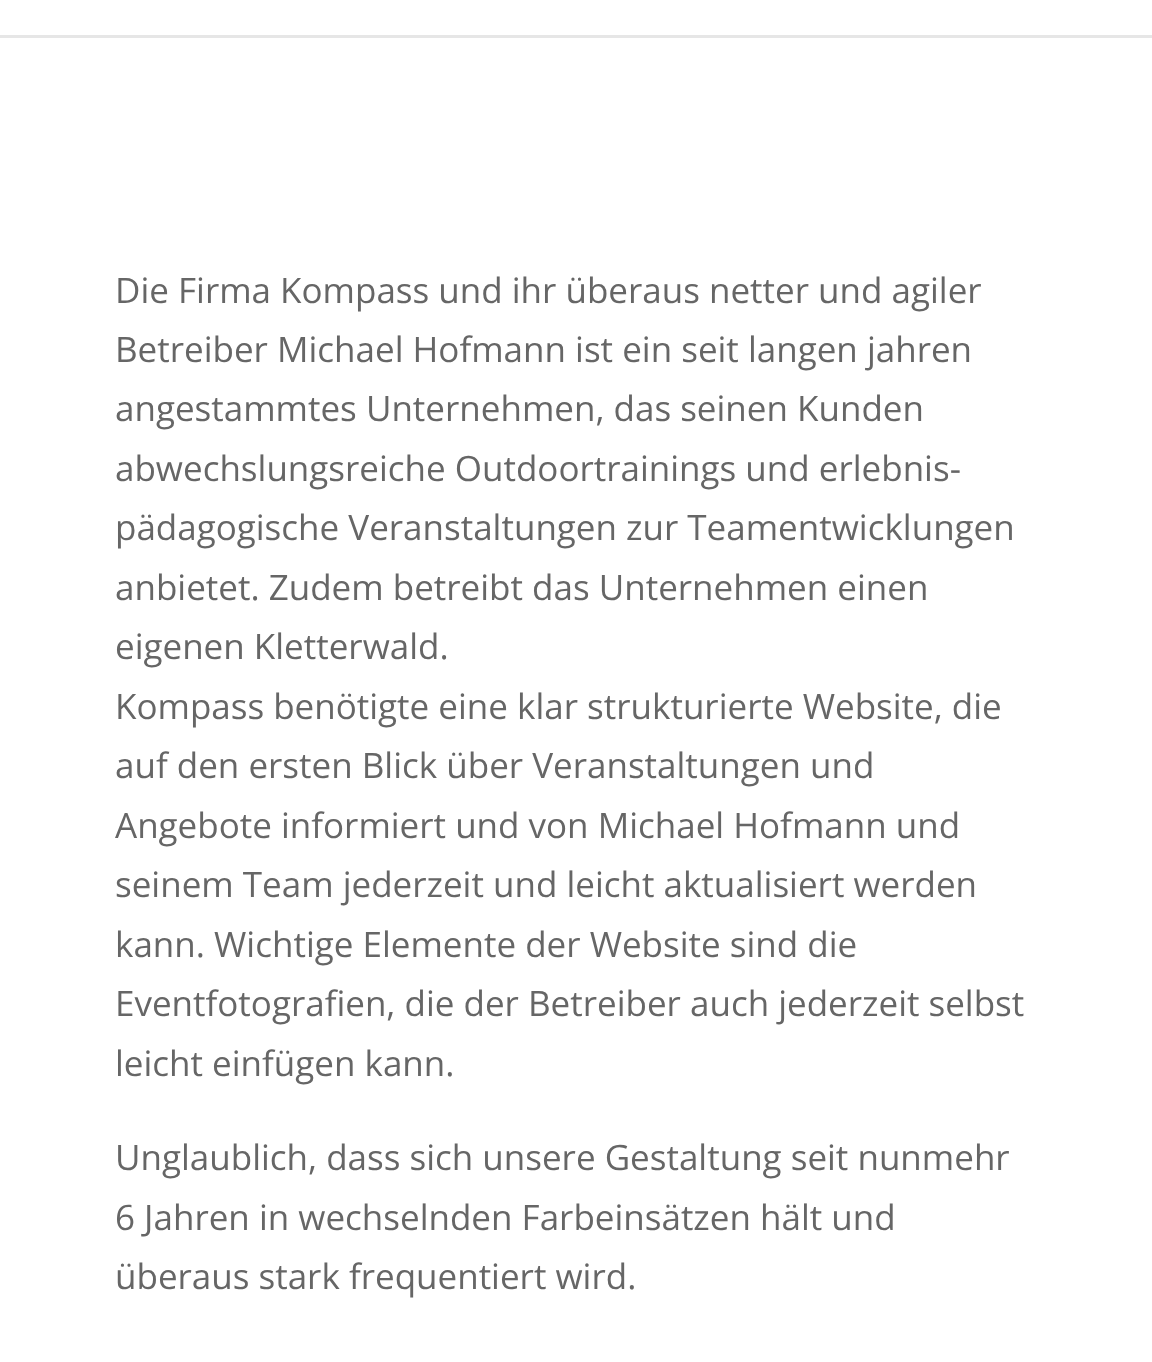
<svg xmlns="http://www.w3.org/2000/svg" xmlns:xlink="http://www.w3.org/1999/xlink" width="1152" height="1362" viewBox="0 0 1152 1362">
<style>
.cls-1{font:35px Open Sans;fill:#666666}
</style>
<rect width="100%" height="100%" fill="#ffffff"/>
<path fill="#e6e6e6" d="M0 35V38H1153V-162H1152V35Z"/>
<text class="cls-1"><tspan x="115" y="303">Die Firma Kompass und ihr überaus netter und agiler</tspan><tspan x="115" y="362">Betreiber Michael Hofmann ist ein seit langen jahren</tspan><tspan x="115" y="421">angestammtes Unternehmen, das seinen Kunden</tspan><tspan x="115" y="481">abwechslungsreiche Outdoortrainings und erlebnis-</tspan><tspan x="115" y="540">pädagogische Veranstaltungen zur Teamentwicklungen</tspan><tspan x="115" y="600">anbietet. Zudem betreibt das Unternehmen einen</tspan><tspan x="115" y="659">eigenen Kletterwald.</tspan><tspan x="115" y="719">Kompass benötigte eine klar strukturierte Website, die</tspan><tspan x="115" y="778">auf den ersten Blick über Veranstaltungen und</tspan><tspan x="115" y="838">Angebote informiert und von Michael Hofmann und</tspan><tspan x="115" y="897">seinem Team jederzeit und leicht aktualisiert werden</tspan><tspan x="115" y="957">kann. Wichtige Elemente der Website sind die</tspan><tspan x="115" y="1016">Eventfotografien, die der Betreiber auch jederzeit selbst</tspan><tspan x="115" y="1076">leicht einfügen kann.</tspan></text>
<text class="cls-1"><tspan x="115" y="1170">Unglaublich, dass sich unsere Gestaltung seit nunmehr</tspan><tspan x="115" y="1230">6 Jahren in wechselnden Farbeinsätzen hält und</tspan><tspan x="115" y="1289">überaus stark frequentiert wird.</tspan></text>
</svg>
